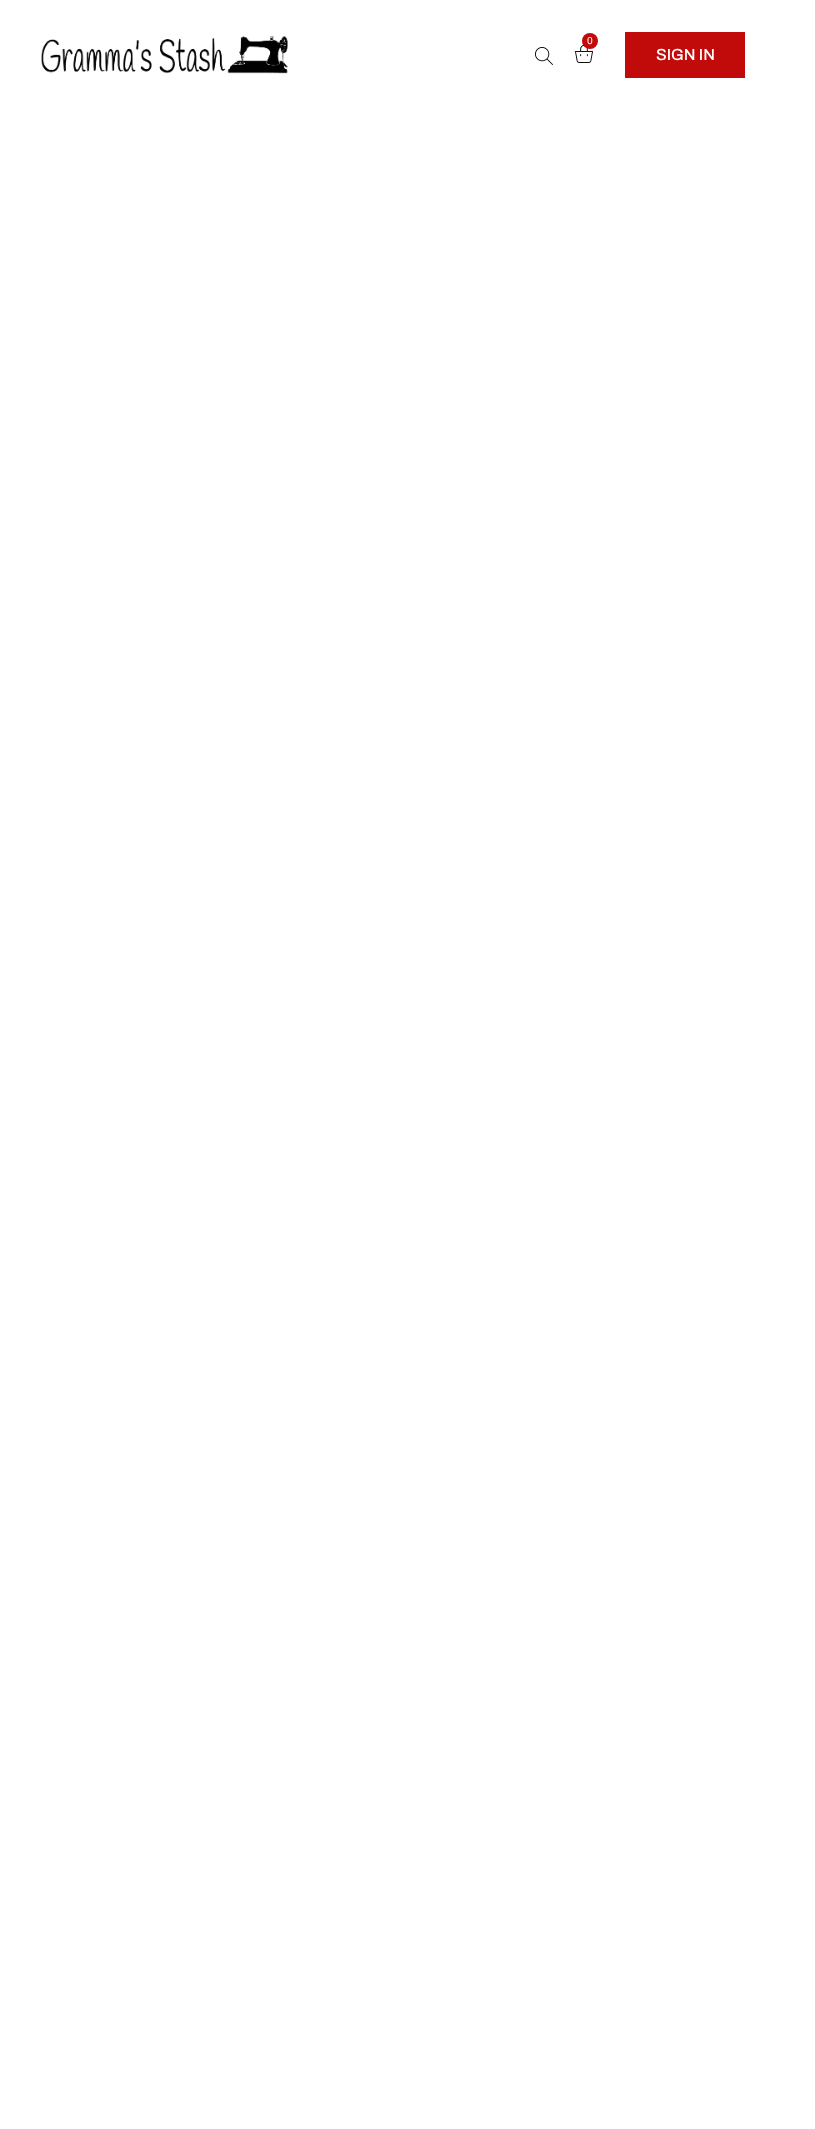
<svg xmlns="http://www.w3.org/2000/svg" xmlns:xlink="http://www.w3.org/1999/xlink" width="815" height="2129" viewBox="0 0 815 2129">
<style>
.cls-1{font:10px Archivo;fill:#ffffff}
.cls-2{font:500 16px Archivo;fill:#ffffff}
</style>
<rect width="100%" height="100%" fill="#ffffff"/>
<image xlink:href="image0.png" x="41" y="35" width="247" height="39"/>
<image xlink:href="image1.png" x="575" y="45" width="18" height="18"/>
<circle fill="#c10b0b" cx="590" cy="41" r="8"/>
<image xlink:href="image2.png" x="535" y="47" width="18" height="18"/>
<rect fill="#c10b0b" x="625" y="32" width="120" height="46"/>
<text class="cls-1" x="587" y="44">0</text>
<text class="cls-2" x="656" y="60">SIGN IN</text>
</svg>
